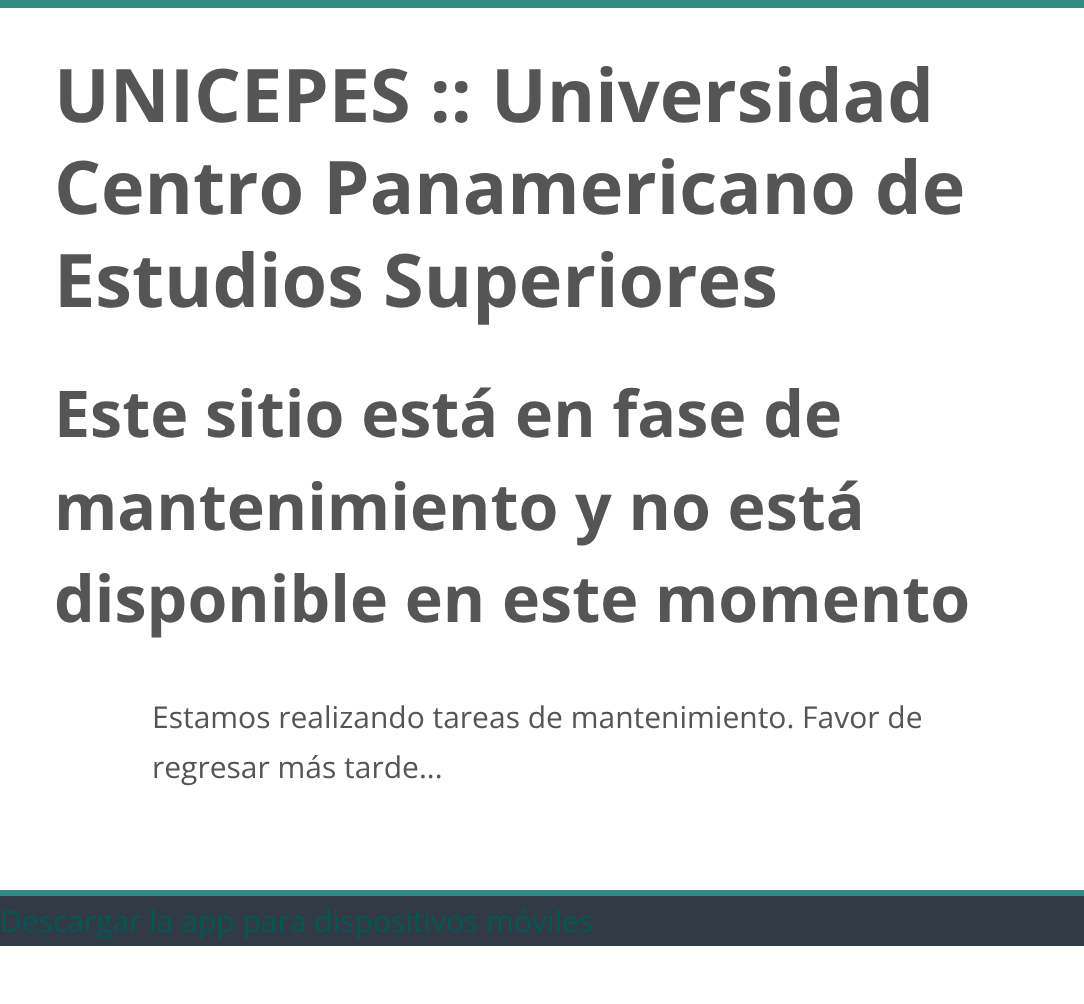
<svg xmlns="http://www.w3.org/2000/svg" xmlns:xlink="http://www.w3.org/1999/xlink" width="1084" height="1004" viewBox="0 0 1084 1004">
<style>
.cls-1{font:bold 73.75px Open Sans;fill:#555555}
.cls-2{font:bold 64.5px Open Sans;fill:#555555}
.cls-3{font:30px Open Sans;fill:#555555}
.cls-4{font:30px Open Sans;fill:#005954}
</style>
<rect width="100%" height="100%" fill="#ffffff"/>
<rect fill="#338b85" x="0" y="0" width="1084" height="8"/>
<rect fill="#323a45" x="0" y="896" width="1084" height="50"/>
<rect fill="#338b85" x="0" y="890" width="1084" height="6"/>
<text class="cls-1"><tspan x="54" y="122">UNICEPES :: Universidad</tspan><tspan x="54" y="214">Centro Panamericano de</tspan><tspan x="54" y="307">Estudios Superiores</tspan></text>
<text class="cls-2"><tspan x="54" y="437">Este sitio está en fase de</tspan><tspan x="54" y="530">mantenimiento y no está</tspan><tspan x="54" y="622">disponible en este momento</tspan></text>
<text class="cls-3"><tspan x="152" y="728">Estamos realizando tareas de mantenimiento. Favor de</tspan><tspan x="152" y="778">regresar más tarde...</tspan></text>
<text class="cls-4" x="0" y="932">Descargar la app para dispositivos móviles</text>
</svg>
